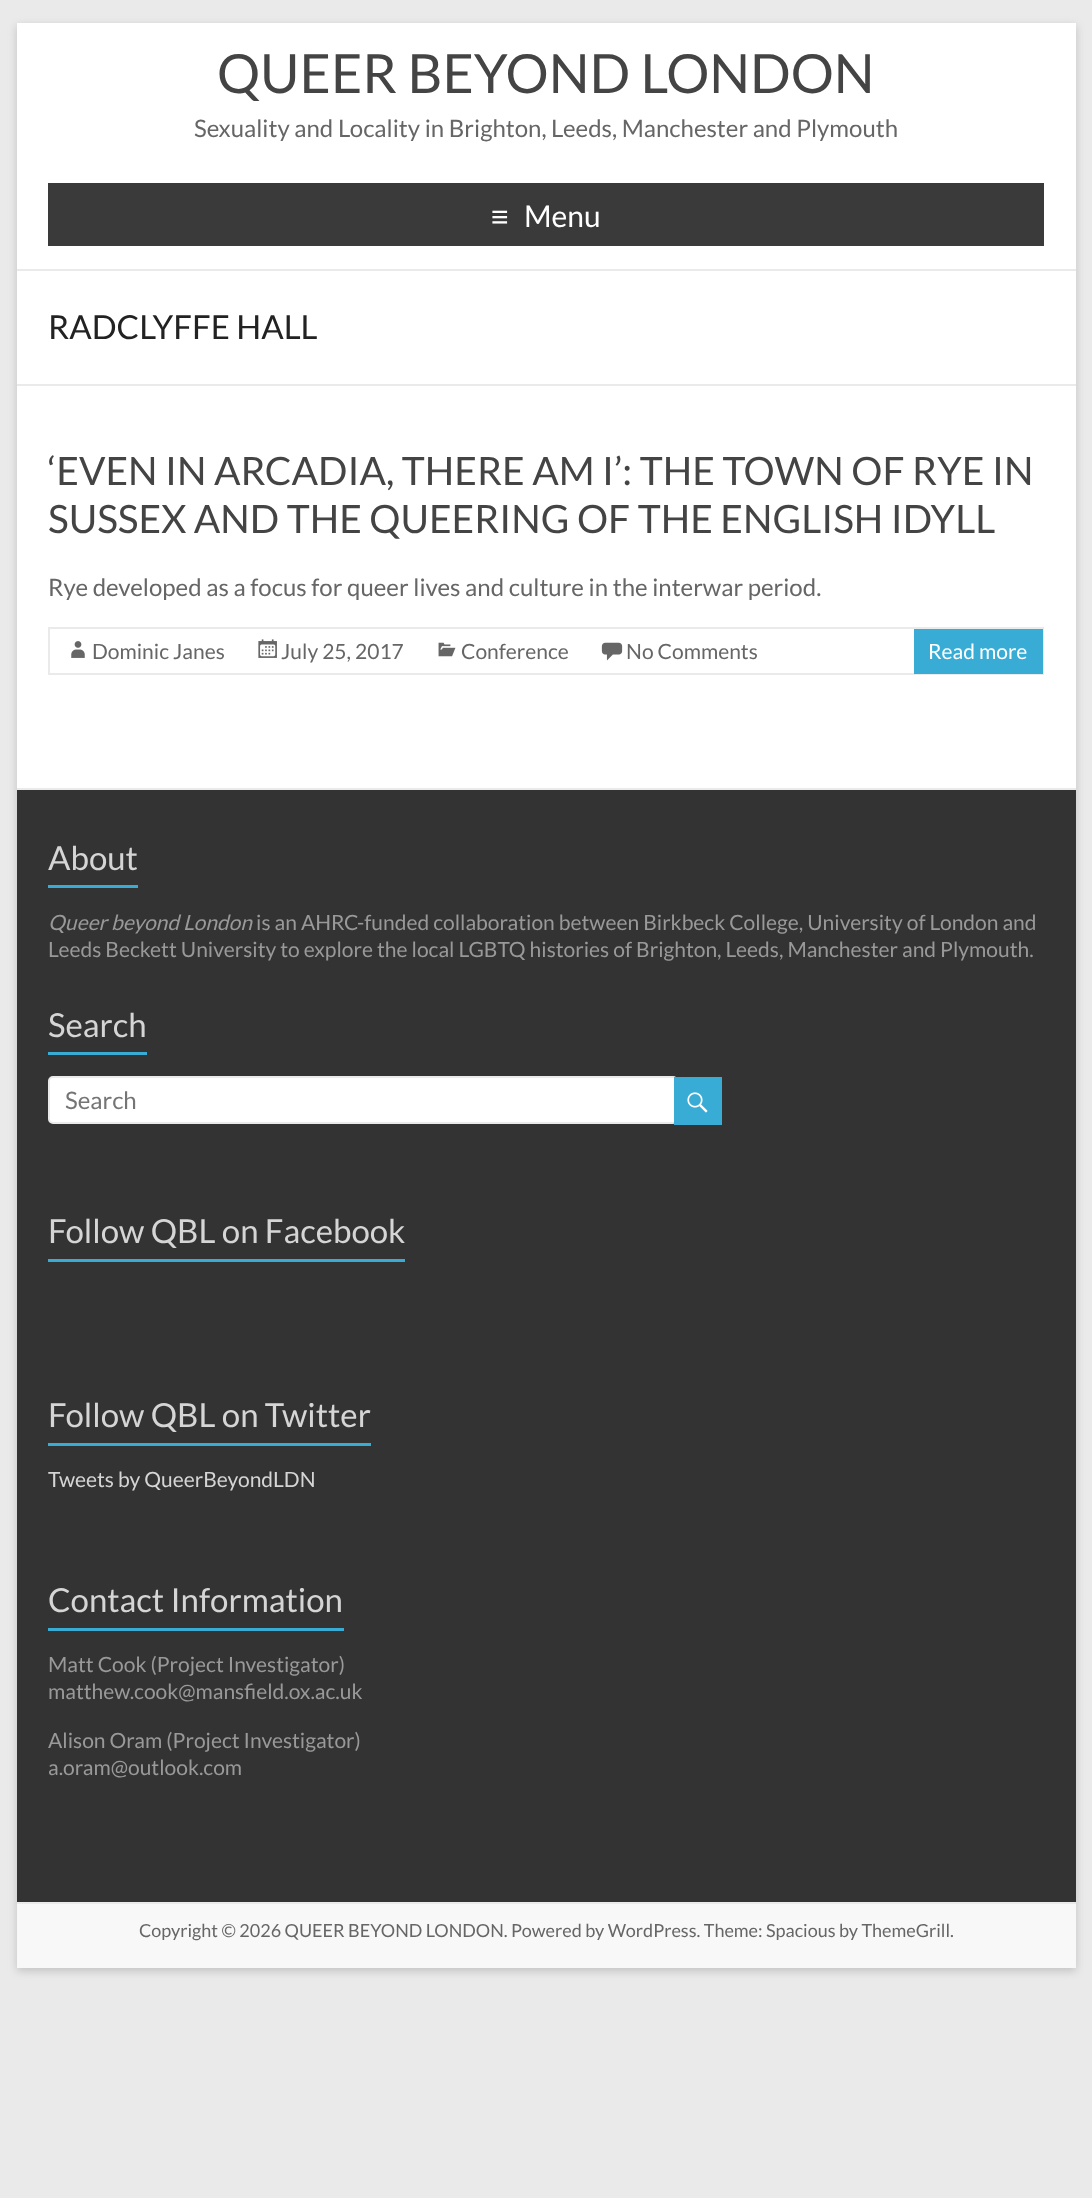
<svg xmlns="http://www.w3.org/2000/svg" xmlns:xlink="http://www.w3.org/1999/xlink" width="1092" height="2198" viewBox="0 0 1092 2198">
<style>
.cls-1{font:54px Lato;fill:#444444}
.cls-2{font:24px Lato;fill:#666666}
.cls-3{font:30px Liberation Sans;fill:#ffffff}
.cls-4{font:30px Lato;fill:#ffffff}
.cls-5{font:33px Lato;fill:#222222}
.cls-6{font:39px Lato;fill:#444444}
.cls-7{font:21px Lato;fill:#666666}
.cls-8{font:21px Lato;fill:#ffffff}
.cls-9{font:33px Lato;fill:#d5d5d5}
.cls-10{font:italic 21px Lato;fill:#999999}
.cls-11{font:21px Lato;fill:#999999}
.cls-12{font:24px Lato;fill:#757575}
.cls-13{font:21px Lato;fill:#d5d5d5}
.cls-14{font:18px Lato;fill:#666666}
</style>
<rect width="100%" height="100%" fill="#eaeaea"/>
<rect fill="#646464" fill-opacity="0.3" filter="blur(4.5px)" x="17" y="26" width="1059" height="1945"/>
<rect fill="#ffffff" x="17" y="23" width="1059" height="765"/>
<rect fill="#eaeaea" x="17" y="269" width="1059" height="2"/>
<rect fill="#3a3a3a" x="48" y="183" width="996" height="63"/>
<rect fill="#eaeaea" x="17" y="384" width="1059" height="2"/>
<rect fill="none" stroke="#eaeaea" stroke-width="2" x="49" y="628" width="994" height="46"/>
<image xlink:href="image0.png" x="71" y="641" width="14" height="17"/>
<image xlink:href="image1.png" x="258" y="639" width="19" height="19"/>
<image xlink:href="image2.png" x="438" y="642" width="18" height="15"/>
<image xlink:href="image3.png" x="601" y="642" width="22" height="19"/>
<rect fill="#39acd6" x="914" y="629" width="129" height="45"/>
<rect fill="#333333" x="17" y="790" width="1059" height="1112"/>
<rect fill="#eaeaea" x="17" y="788" width="1059" height="2"/>
<rect fill="#39acd6" x="48" y="885" width="90" height="3"/>
<rect fill="#39acd6" x="48" y="1052" width="99" height="3"/>
<rect fill="#ffffff" stroke="#eaeaea" stroke-width="2" x="49" y="1077" width="628" height="46" rx="4"/>
<rect fill="#39acd6" x="674" y="1077" width="48" height="48"/>
<image xlink:href="image4.png" x="687" y="1092" width="21" height="21"/>
<rect fill="#39acd6" x="48" y="1259" width="357" height="3"/>
<rect fill="#39acd6" x="48" y="1443" width="323" height="3"/>
<rect fill="#39acd6" x="48" y="1628" width="296" height="3"/>
<rect fill="#f8f8f8" x="17" y="1904" width="1059" height="64"/>
<rect fill="#eaeaea" x="17" y="1902" width="1059" height="2"/>
<text class="cls-1" x="217" y="93">QUEER BEYOND LONDON</text>
<text class="cls-2" x="194" y="137">Sexuality and Locality in Brighton, Leeds, Manchester and Plymouth</text>
<text class="cls-3" x="491" y="227">≡</text>
<text class="cls-4" x="524" y="227">Menu</text>
<text class="cls-5" x="48" y="339">RADCLYFFE HALL</text>
<text class="cls-6"><tspan x="48" y="485">‘EVEN IN ARCADIA, THERE AM I’: THE TOWN OF RYE IN</tspan><tspan x="48" y="533">SUSSEX AND THE QUEERING OF THE ENGLISH IDYLL</tspan></text>
<text class="cls-2" x="48" y="596">Rye developed as a focus for queer lives and culture in the interwar period.</text>
<text class="cls-7" x="92" y="659">Dominic Janes</text>
<text class="cls-7" x="281" y="659">July 25, 2017</text>
<text class="cls-7" x="461" y="659">Conference</text>
<text class="cls-7" x="626" y="659">No Comments</text>
<text class="cls-8" x="928" y="659">Read more</text>
<text class="cls-9" x="48" y="870">About</text>
<text class="cls-10" x="48" y="930">Queer beyond London</text>
<text class="cls-11" x="256" y="930">is an AHRC-funded collaboration between Birkbeck College, University of London and</text>
<text class="cls-11" x="48" y="957">Leeds Beckett University to explore the local LGBTQ histories of Brighton, Leeds, Manchester and Plymouth.</text>
<text class="cls-9" x="48" y="1037">Search</text>
<text class="cls-12" x="65" y="1109">Search</text>
<text class="cls-9" x="48" y="1243">Follow QBL on Facebook</text>
<text class="cls-9" x="48" y="1427">Follow QBL on Twitter</text>
<text class="cls-13" x="48" y="1487">Tweets by QueerBeyondLDN</text>
<text class="cls-9" x="48" y="1612">Contact Information</text>
<text class="cls-11"><tspan x="48" y="1672">Matt Cook (Project Investigator)</tspan><tspan x="48" y="1699">matthew.cook@mansfield.ox.ac.uk</tspan></text>
<text class="cls-11"><tspan x="48" y="1748">Alison Oram (Project Investigator)</tspan><tspan x="48" y="1775">a.oram@outlook.com</tspan></text>
<text class="cls-14" x="139" y="1937">Copyright © 2026 QUEER BEYOND LONDON. Powered by WordPress. Theme: Spacious by ThemeGrill.</text>
</svg>
